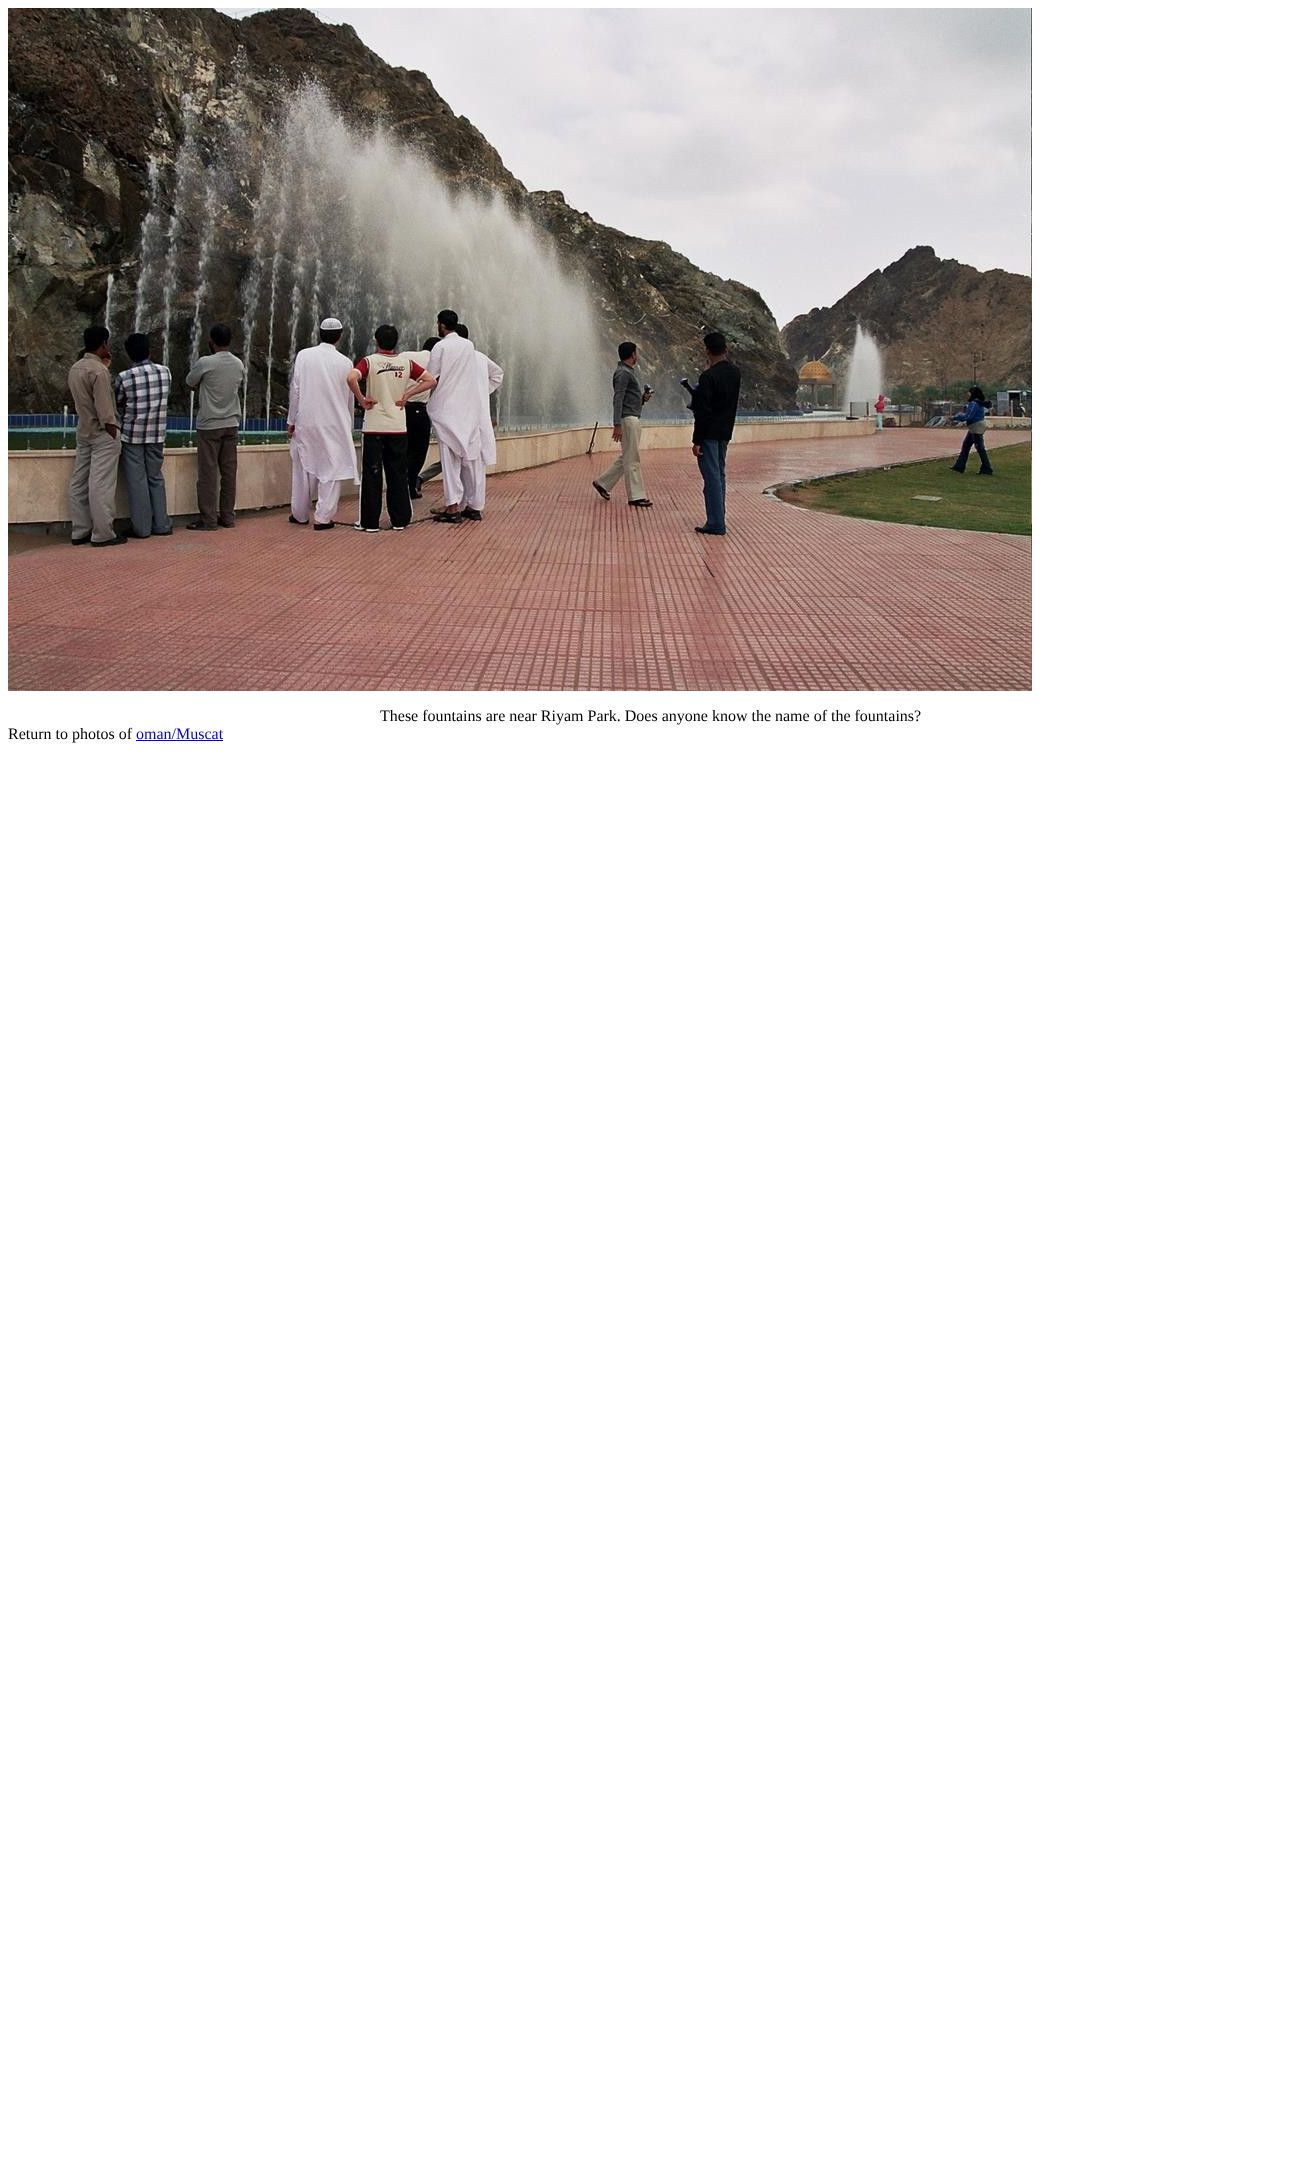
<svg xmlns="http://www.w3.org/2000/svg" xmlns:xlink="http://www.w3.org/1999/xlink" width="1301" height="2162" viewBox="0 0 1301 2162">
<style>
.cls-1{font:16px Liberation Serif;fill:#000000}
.cls-2{font:16px Liberation Serif;fill:#0000ee}
</style>
<rect width="100%" height="100%" fill="#ffffff"/>
<image xlink:href="image0.png" x="8" y="8" width="1024" height="683"/>
<rect fill="#0000ee" x="136" y="740" width="87" height="1"/>
<text class="cls-1" x="380" y="721">These fountains are near Riyam Park. Does anyone know the name of the fountains?</text>
<text class="cls-1" x="8" y="739">Return to photos of</text>
<text class="cls-2" x="136" y="739">oman/Muscat</text>
</svg>
